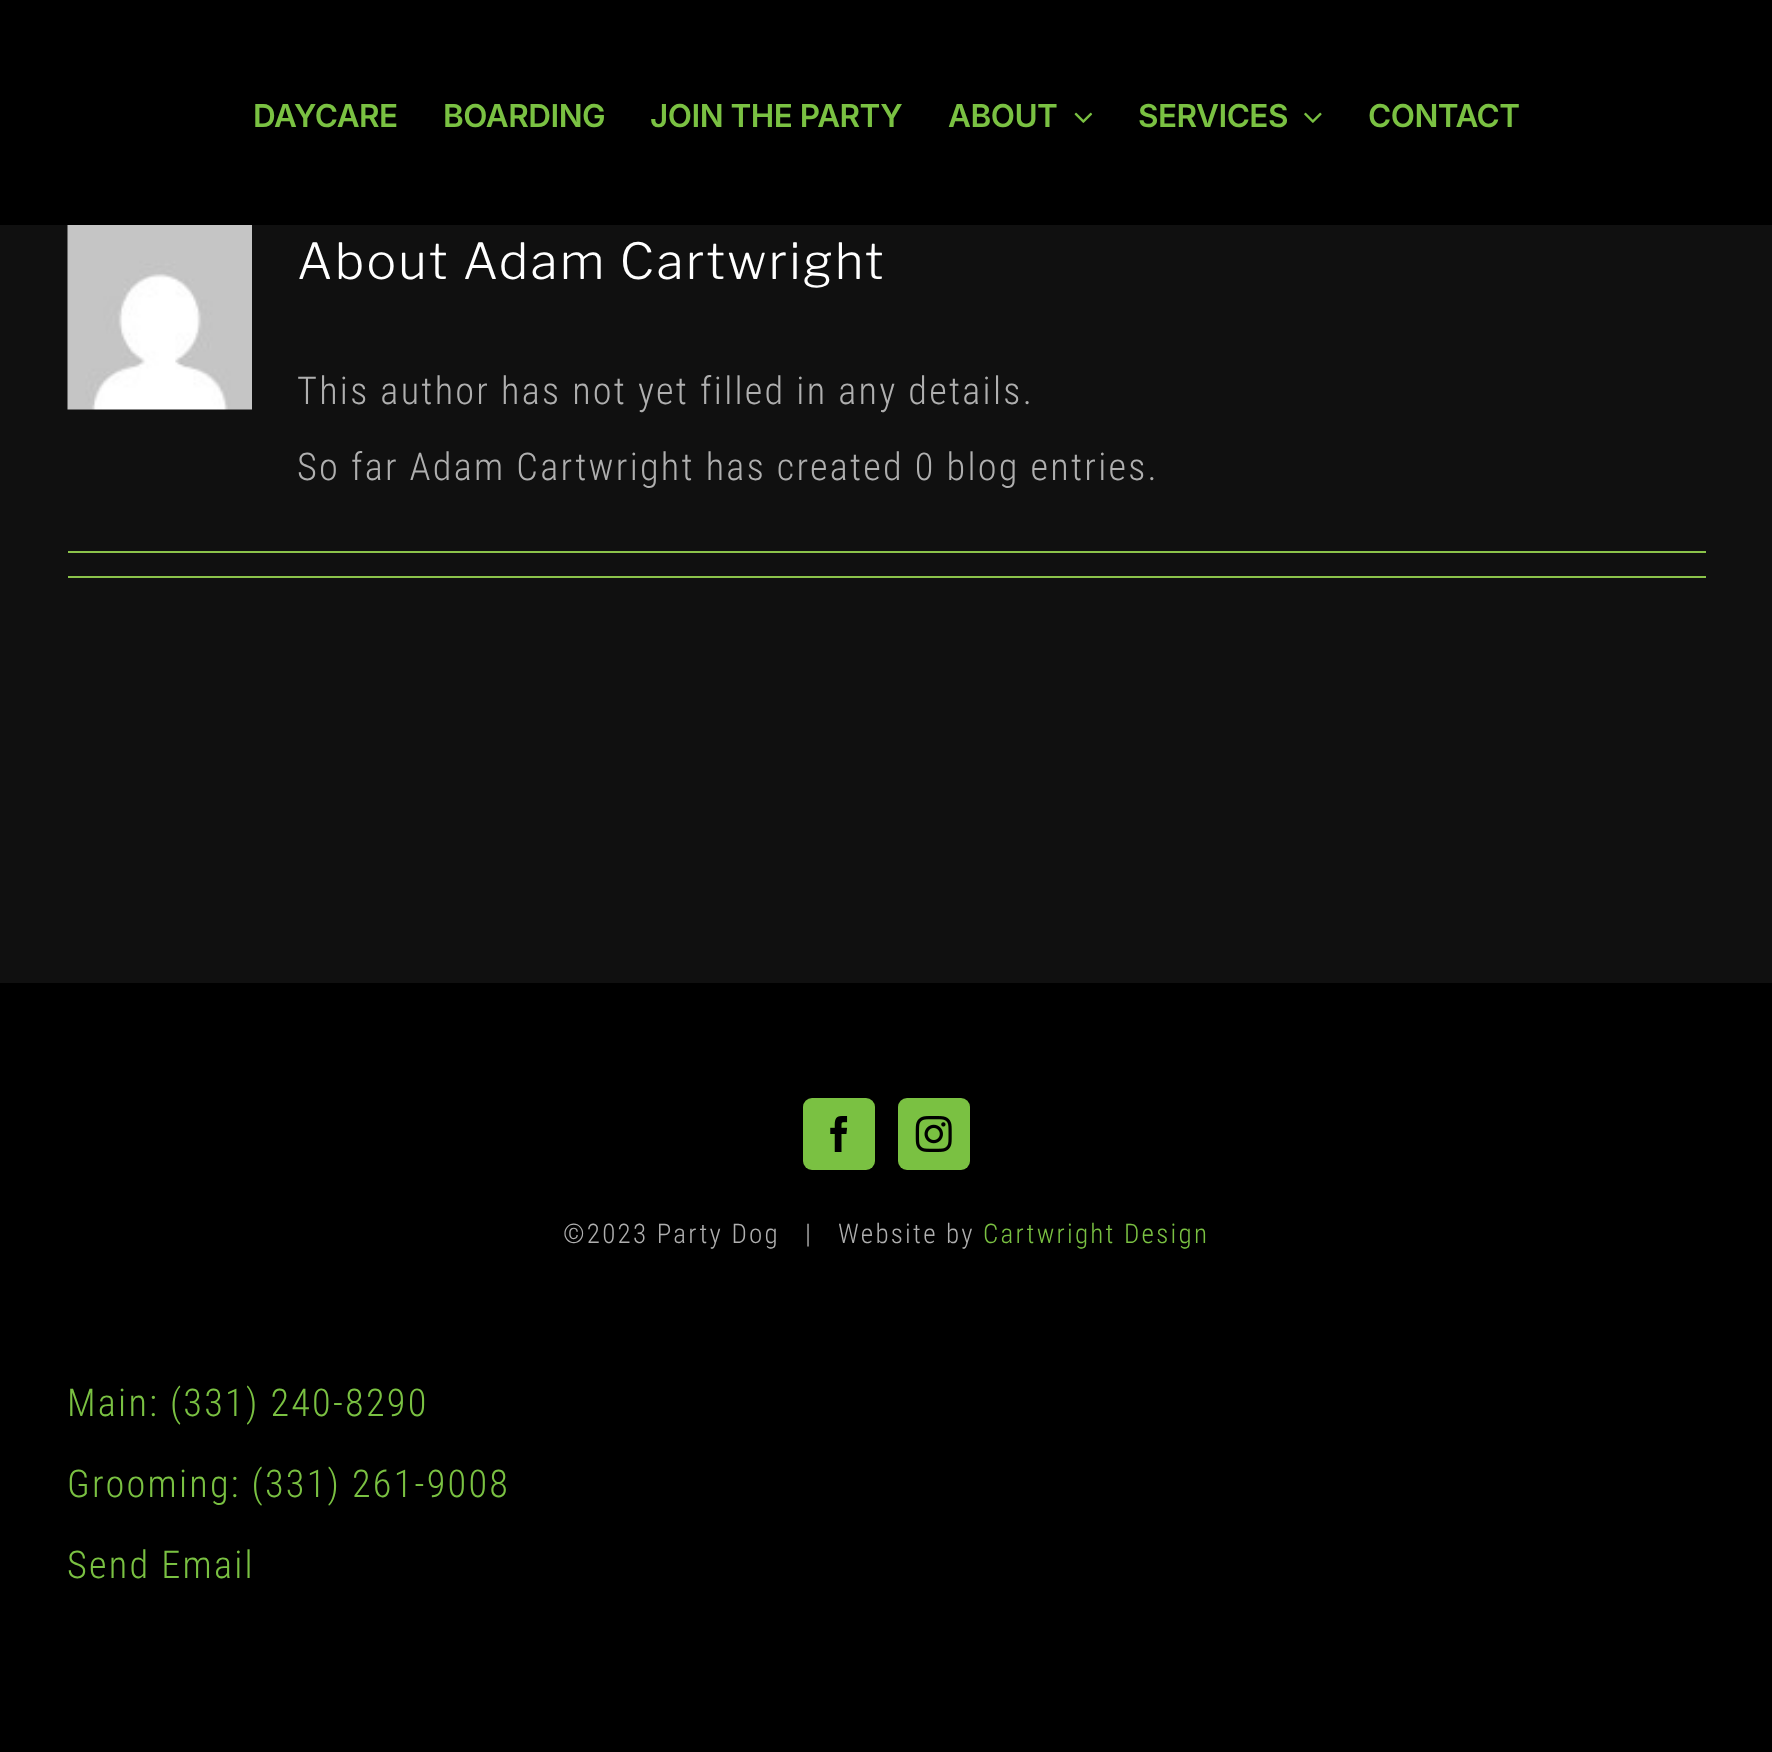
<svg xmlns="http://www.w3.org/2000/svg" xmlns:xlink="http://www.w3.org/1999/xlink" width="1772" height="1752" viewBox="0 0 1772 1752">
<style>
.cls-1{font:600 31.5px Inter;letter-spacing:-0.5px;fill:#7ac142}
.cls-2{font:300 49.5px Libre Franklin;letter-spacing:2.25px;fill:#ffffff}
.cls-3{font:300 38.25px Roboto Condensed;letter-spacing:2.25px;fill:#afafaf}
.cls-4{font:300 27px Roboto Condensed;letter-spacing:2.25px;fill:#afafaf}
.cls-5{font:300 27px Roboto Condensed;letter-spacing:2.25px;fill:#7ac142}
.cls-6{font:300 38.25px Roboto Condensed;letter-spacing:2.25px;fill:#7ac142}
</style>
<rect width="100%" height="100%" fill="#101010"/>
<rect fill="#000000" x="0" y="0" width="1772" height="225"/>
<image xlink:href="image0.png" x="1074" y="112" width="19" height="11"/>
<image xlink:href="image1.png" x="1304" y="112" width="18" height="11"/>
<image xlink:href="image2.png" x="67" y="225" width="185" height="185"/>
<rect fill="#8bc34a" x="68" y="551" width="1638" height="2"/>
<rect fill="#8bc34a" x="68" y="576" width="1638" height="2"/>
<rect fill="#000000" x="0" y="983" width="1772" height="769"/>
<rect fill="#7ac142" x="803" y="1098" width="72" height="72" rx="9"/>
<image xlink:href="image3.png" x="830" y="1116" width="18" height="36"/>
<rect fill="#7ac142" x="898" y="1098" width="72" height="72" rx="9"/>
<image xlink:href="image4.png" x="915" y="1116" width="37" height="36"/>
<text class="cls-1" x="253" y="127">DAYCARE</text>
<text class="cls-1" x="443" y="127">BOARDING</text>
<text class="cls-1" x="650" y="127">JOIN THE PARTY</text>
<text class="cls-1" x="948" y="127">ABOUT</text>
<text class="cls-1" x="1138" y="127">SERVICES</text>
<text class="cls-1" x="1368" y="127">CONTACT</text>
<text class="cls-2" x="297" y="279">About Adam Cartwright</text>
<text class="cls-3"><tspan x="297" y="404">This author has not yet filled in any details.</tspan><tspan x="297" y="480">So far Adam Cartwright has created 0 blog entries.</tspan></text>
<text class="cls-4" xml:space="preserve" x="563" y="1243">©2023 Party Dog   |   Website by</text>
<text class="cls-5" x="983" y="1243">Cartwright Design</text>
<text class="cls-6" x="67" y="1416">Main: (331) 240-8290</text>
<text class="cls-6" x="67" y="1497">Grooming: (331) 261-9008</text>
<text class="cls-6" x="67" y="1578">Send Email</text>
</svg>
